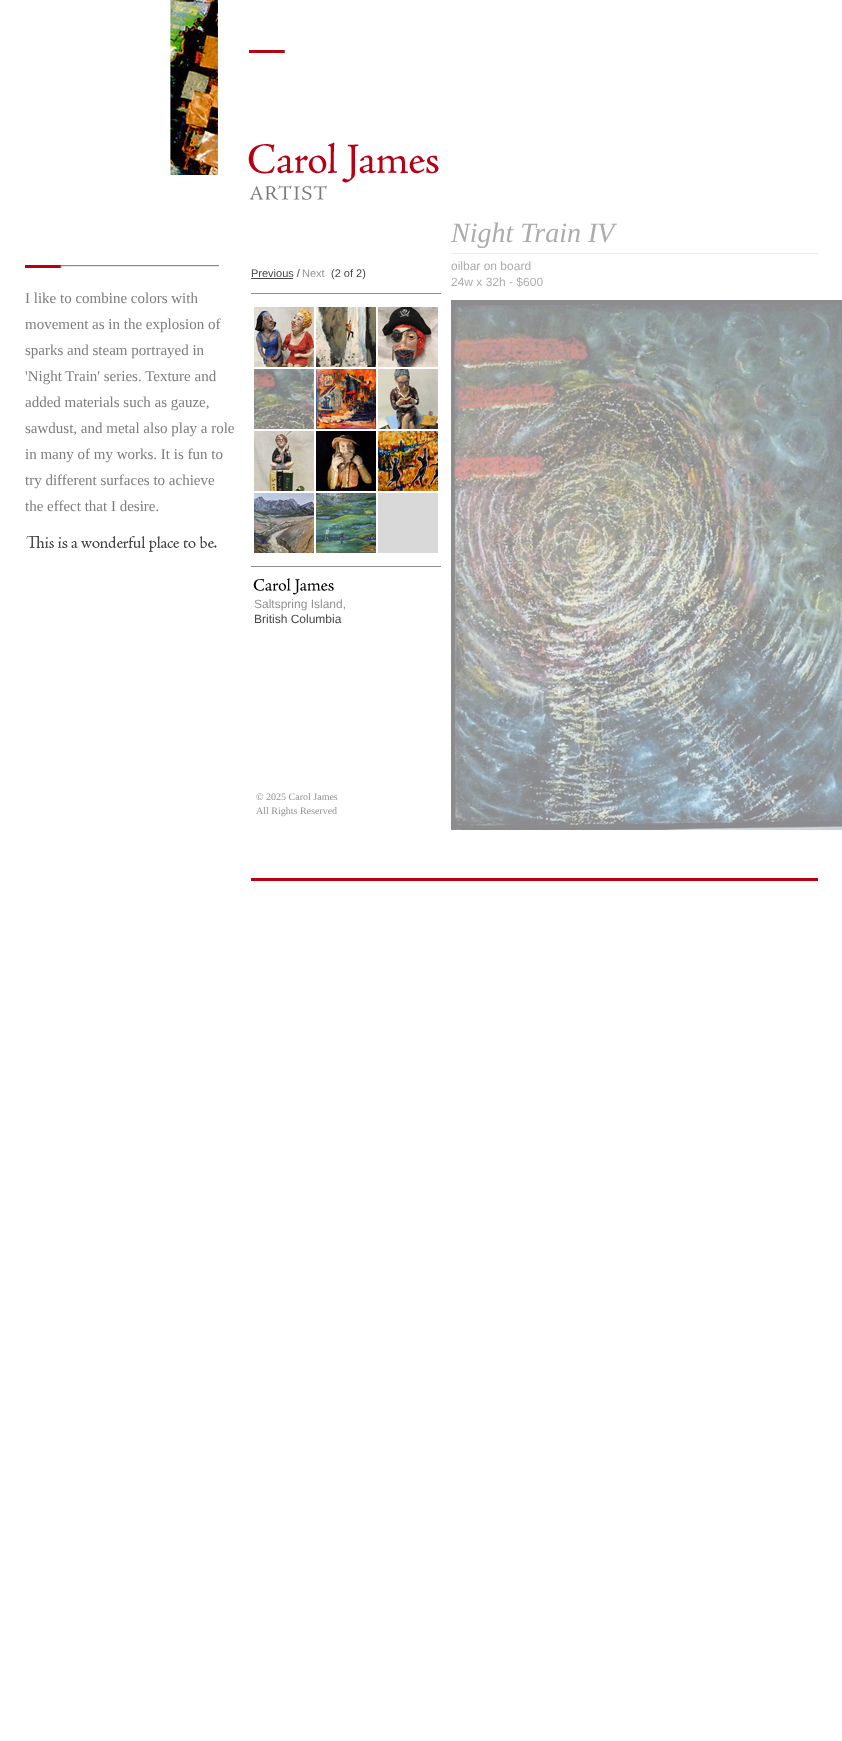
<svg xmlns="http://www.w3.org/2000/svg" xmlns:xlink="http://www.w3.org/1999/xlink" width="842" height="1741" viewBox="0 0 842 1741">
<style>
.cls-1{font:italic 28px Liberation Serif;fill:#acacac}
.cls-2{font:12px Liberation Sans;fill:#acacac}
.cls-3{font:10px Liberation Serif;fill:#919191}
.cls-4{font:15px Liberation Serif;fill:#7d7d7d}
.cls-5{font:11px Liberation Sans;fill:#474747}
.cls-6{font:11px Liberation Sans;fill:#919191}
.cls-7{font:12px Liberation Sans;fill:#919191}
.cls-8{font:12px Liberation Sans;fill:#474747}
</style>
<rect width="100%" height="100%" fill="#ffffff"/>
<image xlink:href="image0.png" x="170" y="0" width="48" height="175"/>
<image xlink:href="image1.png" x="248" y="50" width="191" height="150"/>
<rect fill="#b70014" x="251" y="878" width="567" height="3"/>
<rect fill="#ececec" x="451" y="253" width="367" height="1"/>
<image xlink:href="image2.png" x="451" y="300" width="391" height="530"/>
<image xlink:href="image3.png" x="25" y="265" width="194" height="3"/>
<image xlink:href="image4.png" x="26" y="536" width="191" height="16"/>
<rect fill="#474747" x="251" y="278" width="42" height="1"/>
<rect fill="#8d8d8d" x="251" y="293" width="190" height="1"/>
<rect fill="#8d8d8d" x="251" y="566" width="190" height="1"/>
<image xlink:href="image5.png" x="254" y="307" width="60" height="60"/>
<image xlink:href="image6.png" x="316" y="307" width="60" height="60"/>
<image xlink:href="image7.png" x="378" y="307" width="60" height="60"/>
<image xlink:href="image8.png" x="254" y="369" width="60" height="60"/>
<image xlink:href="image9.png" x="316" y="369" width="60" height="60"/>
<image xlink:href="image10.png" x="378" y="369" width="60" height="60"/>
<image xlink:href="image11.png" x="254" y="431" width="60" height="60"/>
<image xlink:href="image12.png" x="316" y="431" width="60" height="60"/>
<image xlink:href="image13.png" x="378" y="431" width="60" height="60"/>
<image xlink:href="image14.png" x="254" y="493" width="60" height="60"/>
<image xlink:href="image15.png" x="316" y="493" width="60" height="60"/>
<rect fill="#dad9d9" x="378" y="493" width="60" height="60"/>
<image xlink:href="image16.png" x="253" y="578" width="81" height="17"/>
<text class="cls-1" x="451" y="242">Night Train IV</text>
<text class="cls-2"><tspan x="451" y="270">oilbar on board</tspan><tspan x="451" y="286">24w x 32h - $600</tspan></text>
<text class="cls-3"><tspan x="256" y="800">© 2025 Carol James</tspan><tspan x="256" y="814">All Rights Reserved</tspan></text>
<text class="cls-4"><tspan x="25" y="303">I like to combine colors with</tspan><tspan x="25" y="329">movement as in the explosion of</tspan><tspan x="25" y="355">sparks and steam portrayed in</tspan><tspan x="25" y="381">'Night Train' series. Texture and</tspan><tspan x="25" y="407">added materials such as gauze,</tspan><tspan x="25" y="433">sawdust, and metal also play a role</tspan><tspan x="25" y="459">in many of my works. It is fun to</tspan><tspan x="25" y="485">try different surfaces to achieve</tspan><tspan x="25" y="511">the effect that I desire.</tspan></text>
<text class="cls-5" x="251" y="277">Previous /</text>
<text class="cls-6" x="302" y="277">Next</text>
<text class="cls-5" x="331" y="277">(2 of 2)</text>
<text class="cls-7" x="254" y="608">Saltspring Island,</text>
<text class="cls-8" x="254" y="623">British Columbia</text>
</svg>
